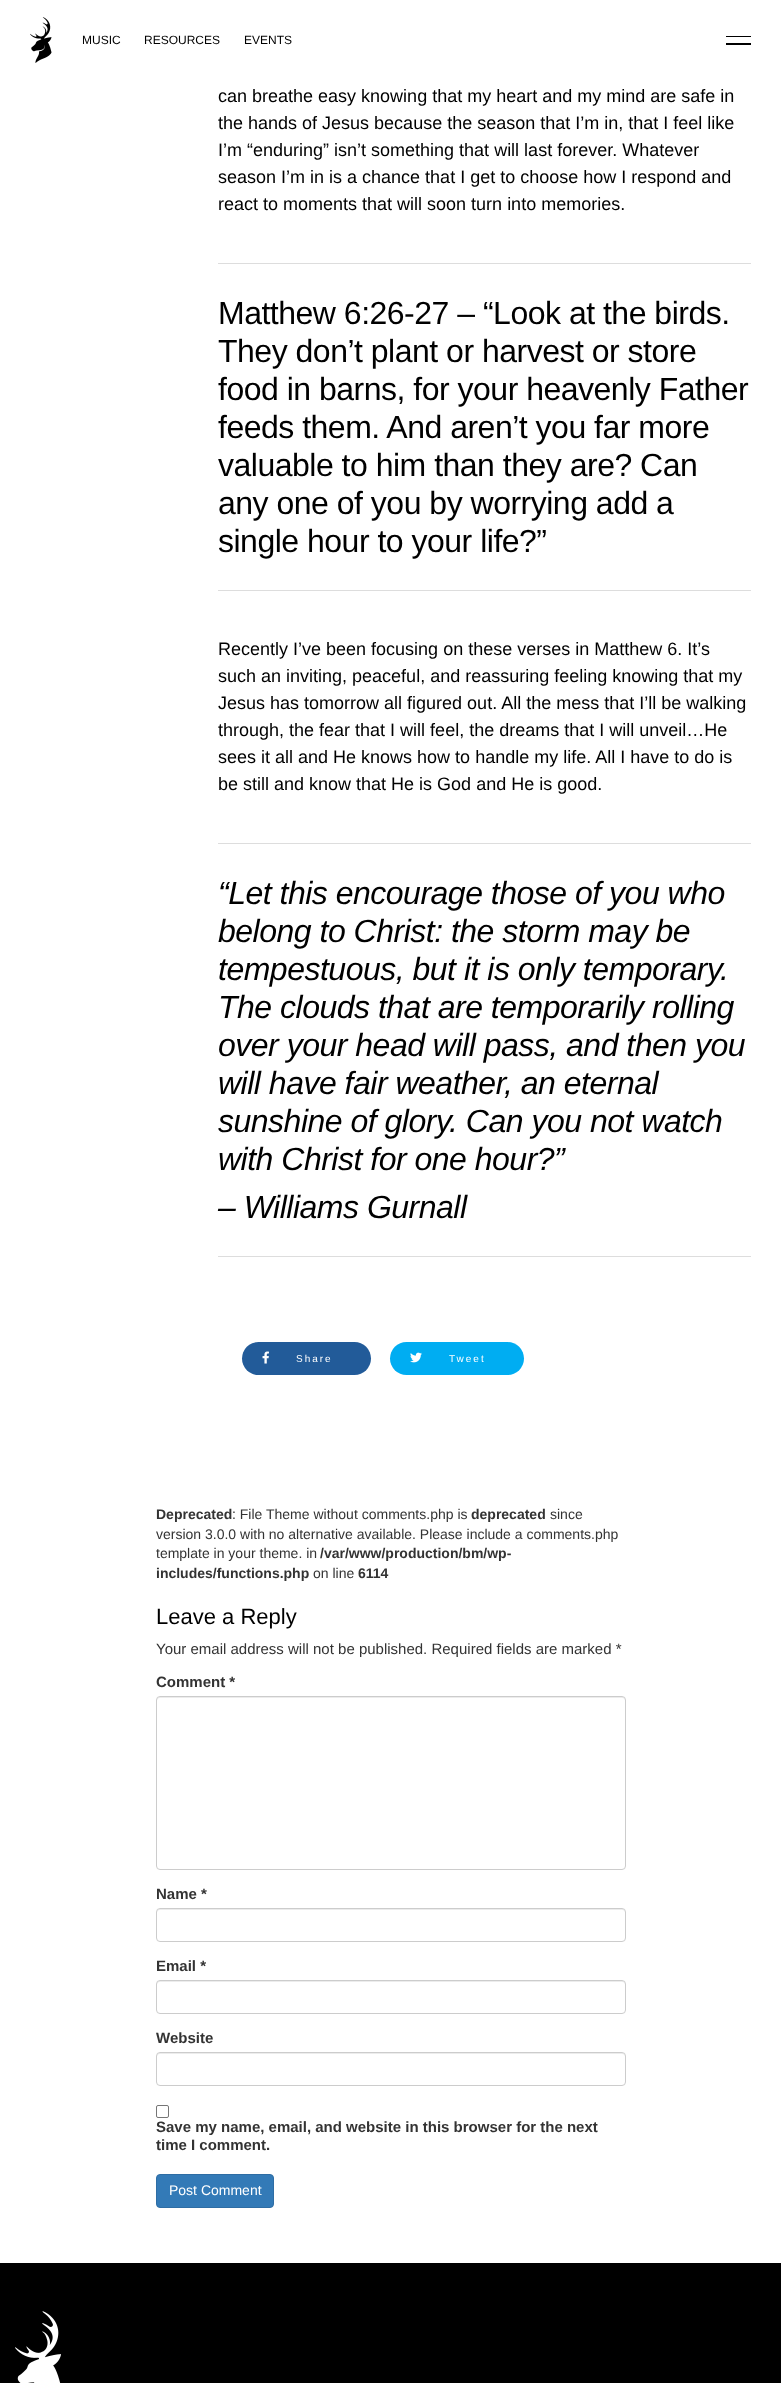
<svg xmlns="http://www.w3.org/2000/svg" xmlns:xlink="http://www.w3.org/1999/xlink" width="781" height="2383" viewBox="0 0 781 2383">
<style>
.cls-1{font:12px Liberation Sans;fill:#000000}
.cls-2{font:18px Liberation Sans;fill:#000000}
.cls-3{font:32px Liberation Sans;letter-spacing:-0.5px;fill:#000000}
.cls-4{font:italic 32px Liberation Sans;letter-spacing:-0.5px;fill:#000000}
.cls-5{font:10px Liberation Sans;letter-spacing:2px;fill:#ffffff}
.cls-6{font:bold 14px Liberation Sans;fill:#333333}
.cls-7{font:14px Liberation Sans;fill:#333333}
.cls-8{font:22px Liberation Sans;fill:#000000}
.cls-9{font:15px Liberation Sans;fill:#333333}
.cls-10{font:bold 15px Liberation Sans;fill:#333333}
.cls-11{font:14px Liberation Sans;fill:#ffffff}
</style>
<rect width="100%" height="100%" fill="#ffffff"/>
<image xlink:href="image0.png" x="30" y="17" width="22" height="46"/>
<rect fill="#000000" x="726" y="36" width="25" height="1"/>
<rect fill="#000000" x="726" y="43" width="25" height="2"/>
<rect fill="#dddddd" x="218" y="263" width="533" height="1"/>
<rect fill="#dddddd" x="218" y="590" width="533" height="1"/>
<rect fill="#dddddd" x="218" y="843" width="533" height="1"/>
<rect fill="#dddddd" x="218" y="1256" width="533" height="1"/>
<rect fill="#225b99" x="242" y="1342" width="129" height="33" rx="16.5"/>
<image xlink:href="image1.png" x="262" y="1351" width="7" height="13"/>
<rect fill="#00adf2" x="390" y="1342" width="134" height="33" rx="16.5"/>
<image xlink:href="image2.png" x="410" y="1352" width="12" height="11"/>
<path fill="#ececec" d="M160 1698H622C624 1698 625 1699 625 1701V1700C625 1698 624 1697 622 1697H160C158 1697 157 1698 157 1700V1701C157 1699 158 1698 160 1698Z"/>
<rect fill="none" stroke="#cccccc" x="156.5" y="1696.5" width="469" height="173" rx="3.5"/>
<path fill="#ececec" d="M160 1910H622C624 1910 625 1911 625 1913V1912C625 1910 624 1909 622 1909H160C158 1909 157 1910 157 1912V1913C157 1911 158 1910 160 1910Z"/>
<rect fill="none" stroke="#cccccc" x="156.5" y="1908.5" width="469" height="33" rx="3.5"/>
<path fill="#ececec" d="M160 1982H622C624 1982 625 1983 625 1985V1984C625 1982 624 1981 622 1981H160C158 1981 157 1982 157 1984V1985C157 1983 158 1982 160 1982Z"/>
<rect fill="none" stroke="#cccccc" x="156.5" y="1980.5" width="469" height="33" rx="3.5"/>
<path fill="#ececec" d="M160 2054H622C624 2054 625 2055 625 2057V2056C625 2054 624 2053 622 2053H160C158 2053 157 2054 157 2056V2057C157 2055 158 2054 160 2054Z"/>
<rect fill="none" stroke="#cccccc" x="156.5" y="2052.5" width="469" height="33" rx="3.5"/>
<rect fill="none" stroke="#767676" x="156.5" y="2105.5" width="12" height="12" rx="1.5"/>
<rect fill="#337ab7" stroke="#2e6da4" x="156.5" y="2174.5" width="117" height="33" rx="3.5"/>
<rect fill="#000000" x="0" y="2263" width="781" height="120"/>
<image xlink:href="image3.png" x="15" y="2311" width="46" height="72"/>
<text class="cls-1" x="82" y="44">MUSIC</text>
<text class="cls-1" x="144" y="44">RESOURCES</text>
<text class="cls-1" x="244" y="44">EVENTS</text>
<text class="cls-2"><tspan x="218" y="102">can breathe easy knowing that my heart and my mind are safe in</tspan><tspan x="218" y="129">the hands of Jesus because the season that I’m in, that I feel like</tspan><tspan x="218" y="156">I’m “enduring” isn’t something that will last forever. Whatever</tspan><tspan x="218" y="183">season I’m in is a chance that I get to choose how I respond and</tspan><tspan x="218" y="210">react to moments that will soon turn into memories.</tspan></text>
<text class="cls-3"><tspan x="218" y="324">Matthew 6:26-27 – “Look at the birds.</tspan><tspan x="218" y="362">They don’t plant or harvest or store</tspan><tspan x="218" y="400">food in barns, for your heavenly Father</tspan><tspan x="218" y="438">feeds them. And aren’t you far more</tspan><tspan x="218" y="476">valuable to him than they are? Can</tspan><tspan x="218" y="514">any one of you by worrying add a</tspan><tspan x="218" y="552">single hour to your life?”</tspan></text>
<text class="cls-2"><tspan x="218" y="655">Recently I’ve been focusing on these verses in Matthew 6. It’s</tspan><tspan x="218" y="682">such an inviting, peaceful, and reassuring feeling knowing that my</tspan><tspan x="218" y="709">Jesus has tomorrow all figured out. All the mess that I’ll be walking</tspan><tspan x="218" y="736">through, the fear that I will feel, the dreams that I will unveil…He</tspan><tspan x="218" y="763">sees it all and He knows how to handle my life. All I have to do is</tspan><tspan x="218" y="790">be still and know that He is God and He is good.</tspan></text>
<text class="cls-4"><tspan x="218" y="904">“Let this encourage those of you who</tspan><tspan x="218" y="942">belong to Christ: the storm may be</tspan><tspan x="218" y="980">tempestuous, but it is only temporary.</tspan><tspan x="218" y="1018">The clouds that are temporarily rolling</tspan><tspan x="218" y="1056">over your head will pass, and then you</tspan><tspan x="218" y="1094">will have fair weather, an eternal</tspan><tspan x="218" y="1132">sunshine of glory. Can you not watch</tspan><tspan x="218" y="1170">with Christ for one hour?”</tspan><tspan x="218" y="1218">– Williams Gurnall</tspan></text>
<text class="cls-5" x="296" y="1362">Share</text>
<text class="cls-5" x="449" y="1362">Tweet</text>
<text class="cls-6" x="156" y="1519">Deprecated</text>
<text class="cls-7" x="232" y="1519">: File Theme without comments.php is</text>
<text class="cls-6" x="471" y="1519">deprecated</text>
<text class="cls-7" x="550" y="1519">since</text>
<text class="cls-7"><tspan x="156" y="1539">version 3.0.0 with no alternative available. Please include a comments.php</tspan><tspan x="156" y="1558">template in your theme. in</tspan></text>
<text class="cls-6" x="320" y="1558">/var/www/production/bm/wp-</text>
<text class="cls-6" x="156" y="1578">includes/functions.php</text>
<text class="cls-7" x="313" y="1578">on line</text>
<text class="cls-6" x="358" y="1578">6114</text>
<text class="cls-8" x="156" y="1624">Leave a Reply</text>
<text class="cls-9" x="156" y="1654">Your email address will not be published. Required fields are marked *</text>
<text class="cls-10" x="156" y="1687">Comment *</text>
<text class="cls-10" x="156" y="1899">Name *</text>
<text class="cls-10" x="156" y="1971">Email *</text>
<text class="cls-10" x="156" y="2043">Website</text>
<text class="cls-10"><tspan x="156" y="2132">Save my name, email, and website in this browser for the next</tspan><tspan x="156" y="2150">time I comment.</tspan></text>
<text class="cls-11" x="169" y="2195">Post Comment</text>
</svg>
